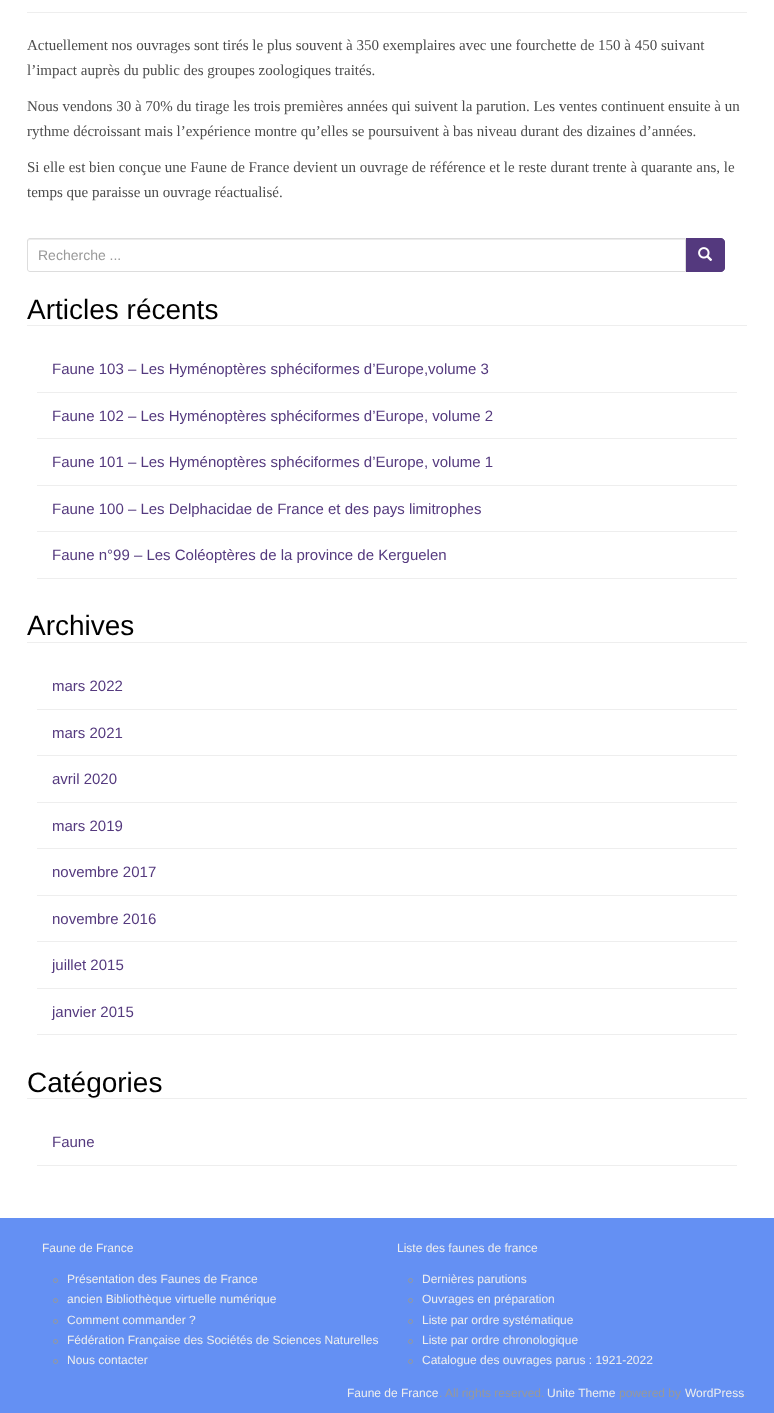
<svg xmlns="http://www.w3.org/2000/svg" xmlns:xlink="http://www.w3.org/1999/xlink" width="774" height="1413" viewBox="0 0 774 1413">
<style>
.cls-1{font:15px Liberation Serif;fill:#4c4c4c}
.cls-2{font:14px Liberation Sans;fill:#999999}
.cls-3{font:28px Liberation Sans;fill:#000000}
.cls-4{font:15px Liberation Sans;fill:#54397e}
.cls-5{font:12px Liberation Sans;fill:#eeeeee}
.cls-6{font:12px Liberation Sans;fill:#999999}
</style>
<rect width="100%" height="100%" fill="#ffffff"/>
<rect fill="#eeeeee" x="27" y="12" width="720" height="1"/>
<path fill="#54397e" stroke="#54397e" d="M685.5 238.5H721C723 238.5 724.5 240 724.5 242V268C724.5 270 723 271.5 721 271.5H685.5Z"/>
<path fill="#ffffff" d="M30 238H686V272H30C28.5 272 27 270.5 27 269V241C27 239.5 28.5 238 30 238Z"/>
<path fill="#ececec" d="M30 240H685V239H30C28 239 28 241 28 242C28 241 29 240 30 240Z"/>
<path fill="none" stroke="#dddddd" d="M30 238.5H685.5V271.5H30C28.5 271.5 27.5 270.5 27.5 269V241C27.5 239.5 28.5 238.5 30 238.5Z"/>
<image xlink:href="image0.png" x="698" y="247" width="15" height="14"/>
<rect fill="#eeeeee" x="27" y="325" width="720" height="1"/>
<rect fill="#eeeeee" x="37" y="392" width="700" height="1"/>
<rect fill="#eeeeee" x="37" y="438" width="700" height="1"/>
<rect fill="#eeeeee" x="37" y="485" width="700" height="1"/>
<rect fill="#eeeeee" x="37" y="531" width="700" height="1"/>
<rect fill="#eeeeee" x="37" y="578" width="700" height="1"/>
<rect fill="#eeeeee" x="27" y="642" width="720" height="1"/>
<rect fill="#eeeeee" x="37" y="709" width="700" height="1"/>
<rect fill="#eeeeee" x="37" y="755" width="700" height="1"/>
<rect fill="#eeeeee" x="37" y="802" width="700" height="1"/>
<rect fill="#eeeeee" x="37" y="848" width="700" height="1"/>
<rect fill="#eeeeee" x="37" y="895" width="700" height="1"/>
<rect fill="#eeeeee" x="37" y="941" width="700" height="1"/>
<rect fill="#eeeeee" x="37" y="988" width="700" height="1"/>
<rect fill="#eeeeee" x="37" y="1034" width="700" height="1"/>
<rect fill="#eeeeee" x="27" y="1098" width="720" height="1"/>
<rect fill="#eeeeee" x="37" y="1165" width="700" height="1"/>
<rect fill="#6490f3" x="0" y="1218" width="774" height="195"/>
<circle fill="none" stroke="#999999" cx="55.5" cy="1280.5" r="2"/>
<circle fill="none" stroke="#999999" cx="55.5" cy="1300.5" r="2"/>
<circle fill="none" stroke="#999999" cx="55.5" cy="1321.5" r="2"/>
<circle fill="none" stroke="#999999" cx="55.5" cy="1341.5" r="2"/>
<circle fill="none" stroke="#999999" cx="55.5" cy="1361.5" r="2"/>
<circle fill="none" stroke="#999999" cx="410.5" cy="1280.5" r="2"/>
<circle fill="none" stroke="#999999" cx="410.5" cy="1300.5" r="2"/>
<circle fill="none" stroke="#999999" cx="410.5" cy="1321.5" r="2"/>
<circle fill="none" stroke="#999999" cx="410.5" cy="1341.5" r="2"/>
<circle fill="none" stroke="#999999" cx="410.5" cy="1361.5" r="2"/>
<text class="cls-1"><tspan x="27" y="50">Actuellement nos ouvrages sont tirés le plus souvent à 350 exemplaires avec une fourchette de 150 à 450 suivant</tspan><tspan x="27" y="75">l’impact auprès du public des groupes zoologiques traités.</tspan></text>
<text class="cls-1"><tspan x="27" y="111">Nous vendons 30 à 70% du tirage les trois premières années qui suivent la parution. Les ventes continuent ensuite à un</tspan><tspan x="27" y="136">rythme décroissant mais l’expérience montre qu’elles se poursuivent à bas niveau durant des dizaines d’années.</tspan></text>
<text class="cls-1"><tspan x="27" y="172">Si elle est bien conçue une Faune de France devient un ouvrage de référence et le reste durant trente à quarante ans, le</tspan><tspan x="27" y="197">temps que paraisse un ouvrage réactualisé.</tspan></text>
<text class="cls-2" x="38" y="260">Recherche ...</text>
<text class="cls-3" x="27" y="319">Articles récents</text>
<text class="cls-4" x="52" y="374">Faune 103 – Les Hyménoptères sphéciformes d’Europe,volume 3</text>
<text class="cls-4" x="52" y="421">Faune 102 – Les Hyménoptères sphéciformes d’Europe, volume 2</text>
<text class="cls-4" x="52" y="467">Faune 101 – Les Hyménoptères sphéciformes d’Europe, volume 1</text>
<text class="cls-4" x="52" y="514">Faune 100 – Les Delphacidae de France et des pays limitrophes</text>
<text class="cls-4" x="52" y="560">Faune n°99 – Les Coléoptères de la province de Kerguelen</text>
<text class="cls-3" x="27" y="635">Archives</text>
<text class="cls-4" x="52" y="691">mars 2022</text>
<text class="cls-4" x="52" y="738">mars 2021</text>
<text class="cls-4" x="52" y="784">avril 2020</text>
<text class="cls-4" x="52" y="831">mars 2019</text>
<text class="cls-4" x="52" y="877">novembre 2017</text>
<text class="cls-4" x="52" y="924">novembre 2016</text>
<text class="cls-4" x="52" y="970">juillet 2015</text>
<text class="cls-4" x="52" y="1017">janvier 2015</text>
<text class="cls-3" x="27" y="1092">Catégories</text>
<text class="cls-4" x="52" y="1147">Faune</text>
<text class="cls-5" x="42" y="1252">Faune de France</text>
<text class="cls-5"><tspan x="67" y="1283">Présentation des Faunes de France</tspan><tspan x="67" y="1303">ancien Bibliothèque virtuelle numérique</tspan><tspan x="67" y="1324">Comment commander ?</tspan><tspan x="67" y="1344">Fédération Française des Sociétés de Sciences Naturelles</tspan><tspan x="67" y="1364">Nous contacter</tspan></text>
<text class="cls-5" x="397" y="1252">Liste des faunes de france</text>
<text class="cls-5"><tspan x="422" y="1283">Dernières parutions</tspan><tspan x="422" y="1303">Ouvrages en préparation</tspan><tspan x="422" y="1324">Liste par ordre systématique</tspan><tspan x="422" y="1344">Liste par ordre chronologique</tspan><tspan x="422" y="1364">Catalogue des ouvrages parus : 1921-2022</tspan></text>
<text class="cls-5" x="347" y="1397">Faune de France</text>
<text class="cls-6" x="439" y="1397">.</text>
<text class="cls-6" x="445" y="1397">All rights reserved.</text>
<text class="cls-5" x="547" y="1397">Unite Theme</text>
<text class="cls-6" x="619" y="1397">powered by</text>
<text class="cls-5" x="685" y="1397">WordPress</text>
<text class="cls-6" x="744" y="1397">.</text>
</svg>
